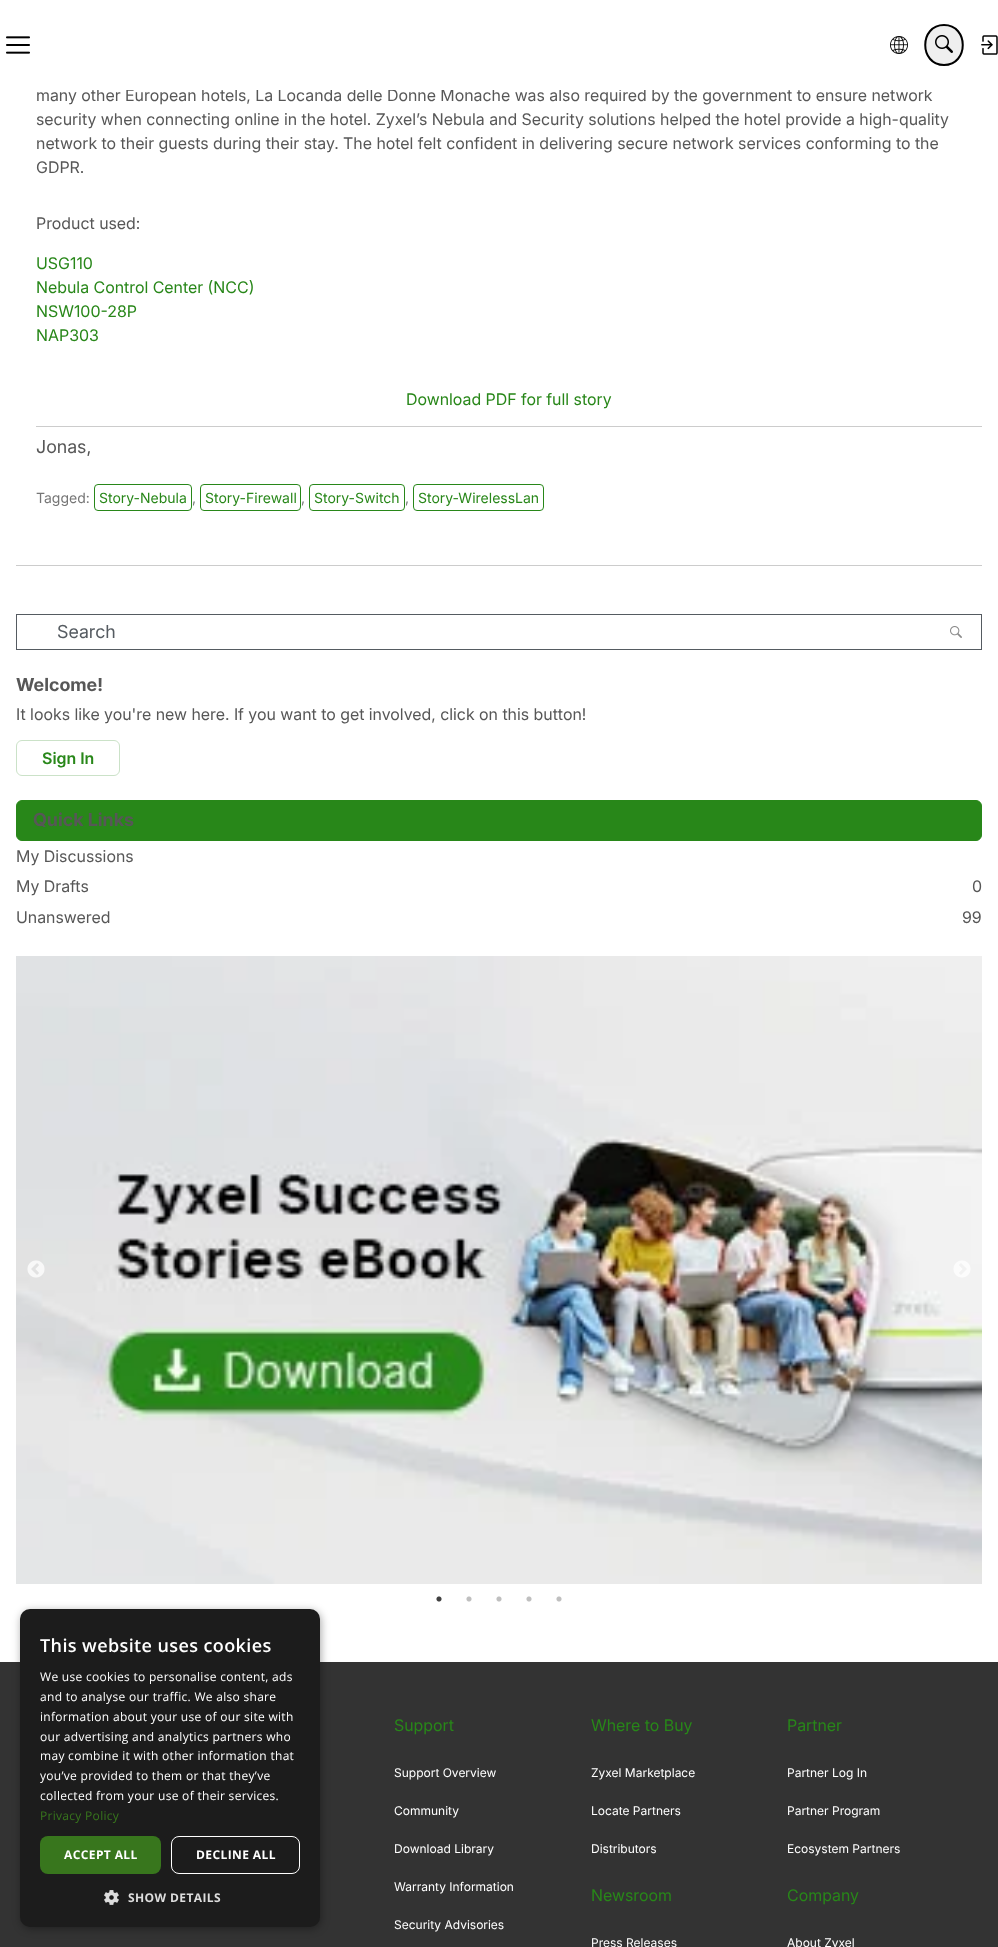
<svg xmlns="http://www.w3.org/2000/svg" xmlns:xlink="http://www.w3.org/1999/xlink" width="998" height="1947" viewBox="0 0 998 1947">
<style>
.cls-1{font:16px Inter;fill:#575757}
.cls-2{font:16px Inter;fill:#288719}
.cls-3{font:18px 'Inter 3';fill:#575757}
.cls-4{font:14px 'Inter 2';fill:#767676}
.cls-5{font:14px 'Inter 2';fill:#288719}
.cls-6{font:18px 'Inter 3';fill:#555b61}
.cls-7{font:bold 18px Inter;fill:#575757}
.cls-8{font:600 16px Inter;fill:#288719}
.cls-9{font:12px 'Inter 2';fill:#ffffff}
.cls-10{font:600 18px Open Sans;letter-spacing:0.4px;fill:#ffffff}
.cls-11{font:12px Open Sans;letter-spacing:0.3px;fill:#ffffff}
.cls-12{font:12px Open Sans;letter-spacing:0.3px;fill:#38761d}
.cls-13{font:bold 12px Open Sans;letter-spacing:0.4px;fill:#ffffff}
.cls-14{font:bold 12px Open Sans;letter-spacing:0.4px;fill:#dddddd}
</style>
<rect width="100%" height="100%" fill="#ffffff"/>
<image xlink:href="image0.png" x="6" y="36" width="24" height="18"/>
<image xlink:href="image1.png" x="890" y="36" width="18" height="18"/>
<ellipse fill="#efefef" cx="944" cy="45" rx="20" ry="21"/>
<path fill="none" stroke="#000000" stroke-width="2" d="M944 25C969 25 969 65 944 65C919 65 919 25 944 25Z"/>
<image xlink:href="image2.png" x="935" y="35" width="18" height="18"/>
<image xlink:href="image3.png" x="981" y="35" width="17" height="20"/>
<rect fill="#cccccc" x="36" y="426" width="946" height="1"/>
<rect fill="none" stroke="#288719" x="94.5" y="484.5" width="97" height="26" rx="3.5"/>
<rect fill="none" stroke="#288719" x="200.5" y="484.5" width="100" height="26" rx="3.5"/>
<rect fill="none" stroke="#288719" x="309.5" y="484.5" width="95" height="26" rx="3.5"/>
<rect fill="none" stroke="#288719" x="413.5" y="484.5" width="130" height="26" rx="3.5"/>
<rect fill="#cccccc" x="16" y="565" width="966" height="1"/>
<rect fill="none" stroke="#555b61" x="16.5" y="614.5" width="965" height="35"/>
<image xlink:href="image4.png" x="950" y="626" width="12" height="12"/>
<rect fill="none" stroke="#cbe2c8" x="16.5" y="740.5" width="103" height="35" rx="5.5"/>
<rect fill="#288719" stroke="#288719" x="16.5" y="800.5" width="965" height="40" rx="5.5"/>
<image xlink:href="image5.png" x="16" y="956" width="966" height="628"/>
<image xlink:href="image6.png" x="27" y="1260" width="18" height="18"/>
<image xlink:href="image7.png" x="953" y="1260" width="18" height="18"/>
<image xlink:href="image8.png" x="436" y="1596" width="6" height="6"/>
<image xlink:href="image9.png" x="466" y="1596" width="6" height="6"/>
<image xlink:href="image9.png" x="496" y="1596" width="6" height="6"/>
<image xlink:href="image9.png" x="526" y="1596" width="6" height="6"/>
<image xlink:href="image9.png" x="556" y="1596" width="6" height="6"/>
<rect fill="#333333" x="0" y="1662" width="998" height="285"/>
<rect fill="#000000" fill-opacity="0.35" filter="blur(4px)" x="21" y="1611" width="300" height="318" rx="10"/>
<rect fill="#1c1c1c" x="20" y="1609" width="300" height="318" rx="10"/>
<rect fill="#38761d" x="40" y="1836" width="121" height="38" rx="8"/>
<rect fill="none" stroke="#ffffff" x="171.5" y="1836.5" width="128" height="37" rx="7.5"/>
<image xlink:href="image10.png" x="104" y="1890" width="15" height="15"/>
<text class="cls-1" x="36" y="101">many other European hotels, La Locanda delle Donne Monache was also required by the government to ensure network</text>
<rect fill="#ffffff" x="97" y="89" width="830" height="1"/>
<text class="cls-1"><tspan x="36" y="125">security when connecting online in the hotel. Zyxel’s Nebula and Security solutions helped the hotel provide a high-quality</tspan><tspan x="36" y="149">network to their guests during their stay. The hotel felt confident in delivering secure network services conforming to the</tspan><tspan x="36" y="173">GDPR.</tspan></text>
<text class="cls-1" x="36" y="229">Product used:</text>
<text class="cls-2"><tspan x="36" y="269">USG110</tspan><tspan x="36" y="293">Nebula Control Center (NCC)</tspan><tspan x="36" y="317">NSW100-28P</tspan><tspan x="36" y="341">NAP303</tspan></text>
<text class="cls-2" x="406" y="405">Download PDF for full story</text>
<text class="cls-3" x="36" y="453">Jonas,</text>
<text class="cls-4" x="36" y="503">Tagged:</text>
<text class="cls-5" x="99" y="503">Story-Nebula</text>
<text class="cls-4" x="192" y="503">,</text>
<text class="cls-5" x="205" y="503">Story-Firewall</text>
<text class="cls-4" x="301" y="503">,</text>
<text class="cls-5" x="314" y="503">Story-Switch</text>
<text class="cls-4" x="405" y="503">,</text>
<text class="cls-5" x="418" y="503">Story-WirelessLan</text>
<text class="cls-6" x="57" y="638">Search</text>
<text class="cls-7" x="16" y="691">Welcome!</text>
<text class="cls-1" x="16" y="720">It looks like you're new here. If you want to get involved, click on this button!</text>
<text class="cls-8" x="42" y="764">Sign In</text>
<text class="cls-7" x="33" y="826">Quick Links</text>
<text class="cls-1"><tspan x="16" y="862">My Discussions</tspan><tspan x="16" y="892">My Drafts</tspan></text>
<text class="cls-1" x="972" y="892">0</text>
<text class="cls-1" x="16" y="923">Unanswered</text>
<text class="cls-1" x="962" y="923">99</text>
<text class="cls-2" x="394" y="1731">Support</text>
<text class="cls-9" x="394" y="1777">Support Overview</text>
<text class="cls-9" x="394" y="1815">Community</text>
<text class="cls-9" x="394" y="1853">Download Library</text>
<text class="cls-9" x="394" y="1891">Warranty Information</text>
<text class="cls-9" x="394" y="1929">Security Advisories</text>
<text class="cls-2" x="591" y="1731">Where to Buy</text>
<text class="cls-9" x="591" y="1777">Zyxel Marketplace</text>
<text class="cls-9" x="591" y="1815">Locate Partners</text>
<text class="cls-9" x="591" y="1853">Distributors</text>
<text class="cls-2" x="591" y="1901">Newsroom</text>
<text class="cls-9" x="591" y="1947">Press Releases</text>
<text class="cls-2" x="787" y="1731">Partner</text>
<text class="cls-9" x="787" y="1777">Partner Log In</text>
<text class="cls-9" x="787" y="1815">Partner Program</text>
<text class="cls-9" x="787" y="1853">Ecosystem Partners</text>
<text class="cls-2" x="787" y="1901">Company</text>
<text class="cls-9" x="787" y="1947">About Zyxel</text>
<text class="cls-10" x="40" y="1652">This website uses cookies</text>
<text class="cls-11"><tspan x="40" y="1681">We use cookies to personalise content, ads</tspan><tspan x="40" y="1701">and to analyse our traffic. We also share</tspan><tspan x="40" y="1721">information about your use of our site with</tspan><tspan x="40" y="1741">our advertising and analytics partners who</tspan><tspan x="40" y="1760">may combine it with other information that</tspan><tspan x="40" y="1780">you’ve provided to them or that they’ve</tspan><tspan x="40" y="1800">collected from your use of their services.</tspan></text>
<text class="cls-12" x="40" y="1820">Privacy Policy</text>
<text class="cls-13" x="64" y="1859">ACCEPT ALL</text>
<text class="cls-13" x="196" y="1859">DECLINE ALL</text>
<text class="cls-14" x="128" y="1902">SHOW DETAILS</text>
</svg>
